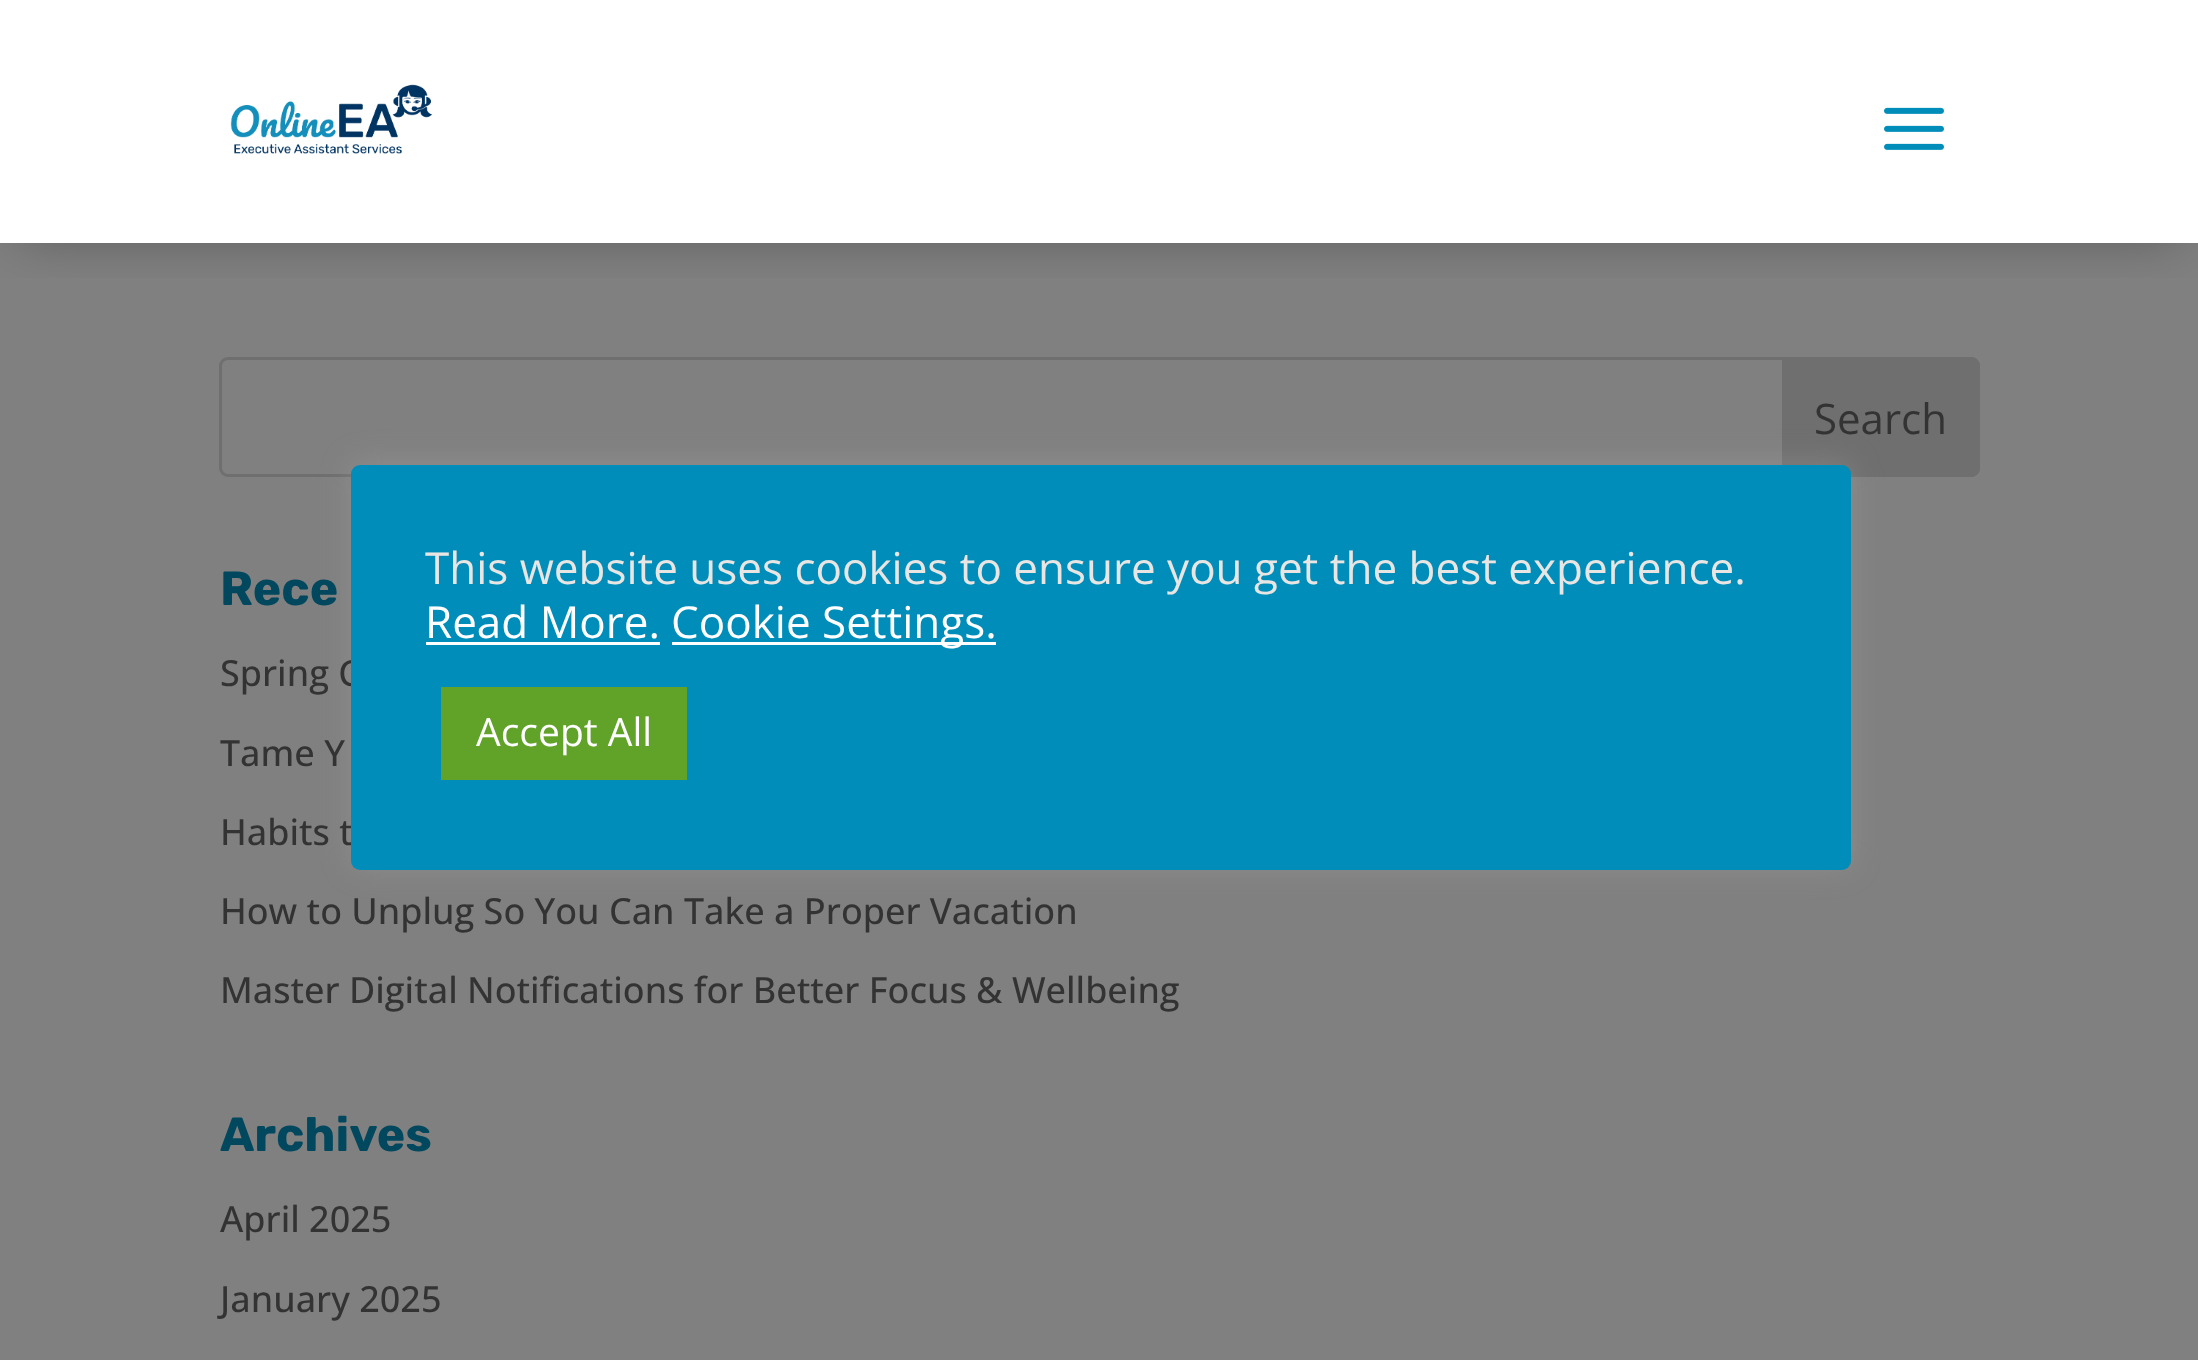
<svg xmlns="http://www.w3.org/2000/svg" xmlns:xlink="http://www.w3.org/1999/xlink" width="2198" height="1360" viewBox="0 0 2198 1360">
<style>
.cls-1{font:42px Open Sans;fill:#333333}
.cls-2{font:300 48px Rubik;fill:#01475d}
.cls-3{font:500 36px Open Sans;fill:#333333}
.cls-4{font:44px Open Sans;fill:#e8e5e2}
.cls-5{font:44px Open Sans;fill:#ffffff}
.cls-6{font:39px Open Sans;fill:#ffffff}
</style>
<defs>
<clipPath id="clip1"><rect x="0" y="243" width="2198" height="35"/></clipPath>
</defs>
<rect width="100%" height="100%" fill="#808080"/>
<rect fill="#ffffff" x="0" y="0" width="2198" height="243"/>
<g clip-path="url(#clip1)">
<rect fill="#000000" fill-opacity="0.3" filter="blur(27px)" x="18" y="30" width="2163" height="207"/>
</g>
<image xlink:href="image0.png" x="230" y="84" width="203" height="70"/>
<image xlink:href="image1.png" x="1884" y="107" width="60" height="43"/>
<rect fill="none" stroke="#6f6f6f" stroke-width="3" x="220.5" y="358.5" width="1758" height="117" rx="7.5"/>
<path fill="#6f6f6f" d="M1782 357H1971C1976 357 1980 361 1980 366V468C1980 473 1976 477 1971 477H1782Z"/>
<rect fill="#acabab" fill-opacity="0.3" filter="blur(15px)" x="351" y="462" width="1500" height="405" rx="9"/>
<text class="cls-1" x="1814" y="434">Search</text>
<text class="cls-2" x="220" y="605">Rece</text>
<text class="cls-3" x="220" y="686">Spring C</text>
<text class="cls-3" x="220" y="766">Tame Y</text>
<text class="cls-3" x="220" y="845">Habits t</text>
<text class="cls-3" x="220" y="924">How to Unplug So You Can Take a Proper Vacation</text>
<text class="cls-3" x="220" y="1003">Master Digital Notifications for Better Focus &amp; Wellbeing</text>
<text class="cls-2" x="220" y="1151">Archives</text>
<text class="cls-3" x="220" y="1232">April 2025</text>
<text class="cls-3" x="220" y="1312">January 2025</text>
<rect fill="#018db9" x="351" y="465" width="1500" height="405" rx="9"/>
<text class="cls-4" x="425" y="584">This website uses cookies to ensure you get the best experience.</text>
<text class="cls-5" x="425" y="638">Read More.</text>
<rect fill="#ffffff" x="426" y="642" width="234" height="3"/>
<rect fill="#ffffff" x="672" y="642" width="324" height="3"/>
<text class="cls-5" x="671" y="638">Cookie Settings.</text>
<rect fill="#61a229" x="441" y="687" width="246" height="93"/>
<text class="cls-6" x="476" y="746">Accept All</text>
</svg>
